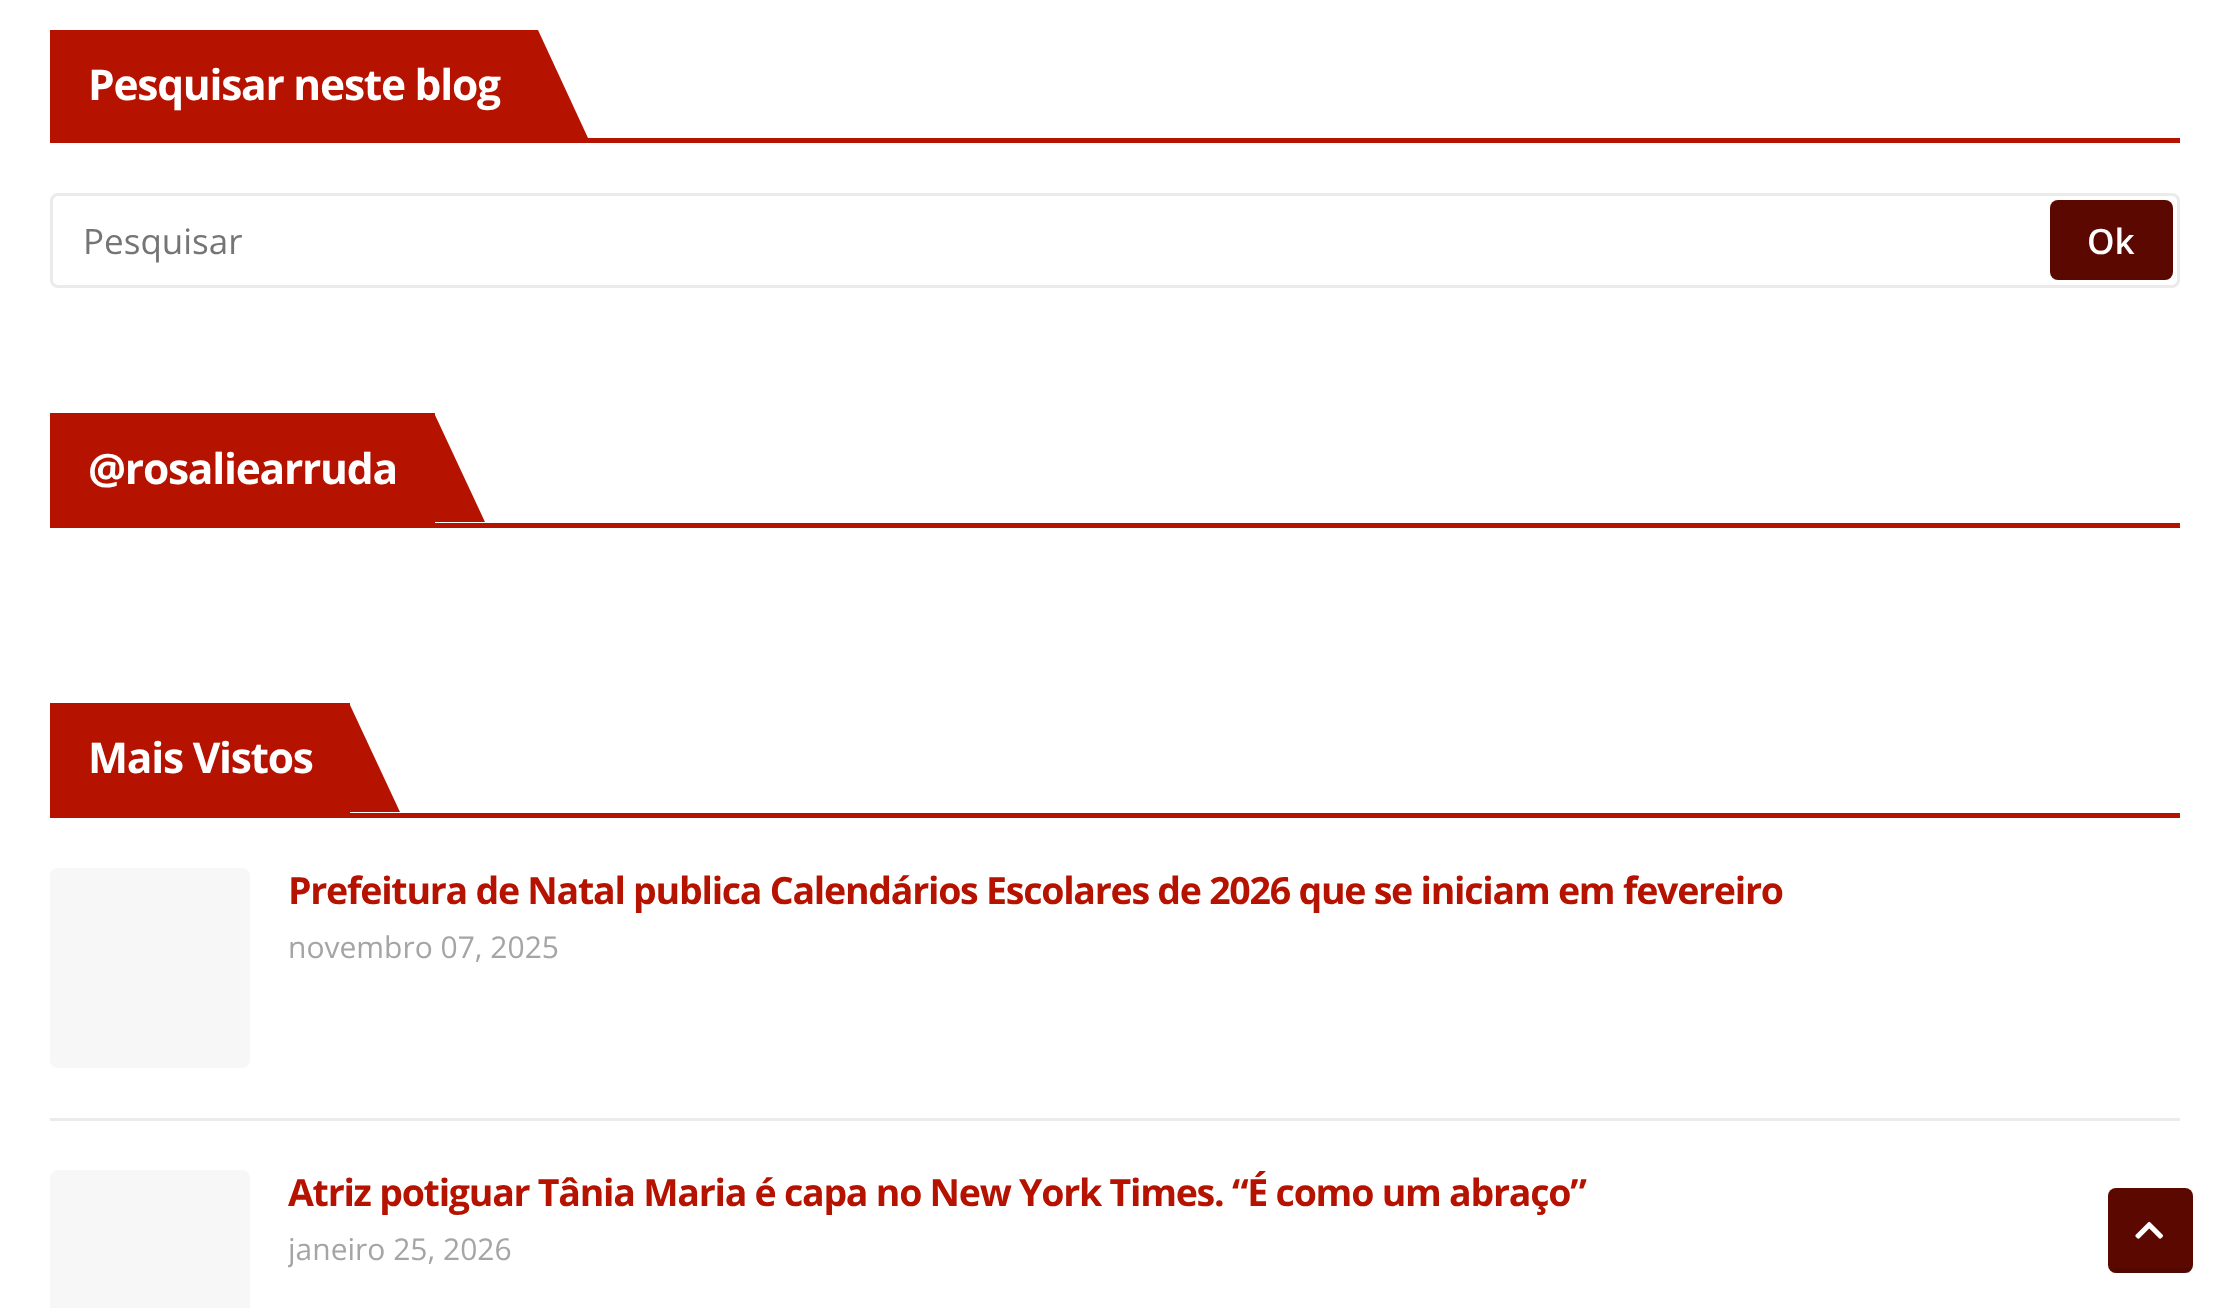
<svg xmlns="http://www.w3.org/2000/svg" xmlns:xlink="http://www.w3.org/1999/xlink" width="2229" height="1308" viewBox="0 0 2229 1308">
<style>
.cls-1{font:bold 42.5px Open Sans;letter-spacing:-1.25px;fill:#ffffff}
.cls-2{font:35px Open Sans;fill:#757575}
.cls-3{font:600 35px Open Sans;fill:#ffffff}
.cls-4{font:bold 37.5px Open Sans;letter-spacing:-1.25px;fill:#b51200}
.cls-5{font:30px Open Sans;fill:#a5a5a5}
</style>
<defs>
<clipPath id="clip1"><rect x="288" y="1170" width="1892" height="105"/></clipPath>
</defs>
<rect width="100%" height="100%" fill="#ffffff"/>
<rect fill="#b51200" x="50" y="138" width="2130" height="5"/>
<rect fill="#b51200" x="50" y="30" width="488" height="108"/>
<path fill="#b51200" d="M538 138V30L588 138Z"/>
<rect fill="none" stroke="#ebebeb" stroke-width="3" x="51.5" y="194.5" width="2127" height="92" rx="6.5"/>
<rect fill="#5b0900" x="2050" y="200" width="123" height="80" rx="8"/>
<rect fill="#b51200" x="50" y="523" width="2130" height="5"/>
<rect fill="#b51200" x="50" y="413" width="385" height="110"/>
<path fill="#b51200" d="M435 522V415L485 522Z"/>
<rect fill="#b51200" x="50" y="813" width="2130" height="5"/>
<rect fill="#b51200" x="50" y="703" width="300" height="110"/>
<path fill="#b51200" d="M350 812V705L400 812Z"/>
<rect fill="#f7f7f7" x="50" y="868" width="200" height="200" rx="8"/>
<rect fill="#ebebeb" x="50" y="1118" width="2130" height="3"/>
<rect fill="#f7f7f7" x="50" y="1170" width="200" height="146" rx="8"/>
<rect fill="#5b0900" x="2108" y="1188" width="85" height="85" rx="8"/>
<rect fill="#000000" fill-opacity="0.1" x="2113" y="1268" width="77" height="5"/>
<image xlink:href="image0.png" x="2135" y="1221" width="28" height="18"/>
<text class="cls-1" x="88" y="100">Pesquisar neste blog</text>
<text class="cls-2" x="83" y="254">Pesquisar</text>
<text class="cls-3" x="2087" y="254">Ok</text>
<text class="cls-1" x="88" y="484">@rosaliearruda</text>
<text class="cls-1" x="88" y="773">Mais Vistos</text>
<text class="cls-4" x="288" y="904">Prefeitura de Natal publica Calendários Escolares de 2026 que se iniciam em fevereiro</text>
<text class="cls-5" x="288" y="958">novembro 07, 2025</text>
<text class="cls-4" x="288" y="1206">Atriz potiguar Tânia Maria é capa no New York Times. “É como um abraço”</text>
<g clip-path="url(#clip1)">
<text class="cls-5" x="288" y="1260">janeiro 25, 2026</text>
</g>
</svg>
